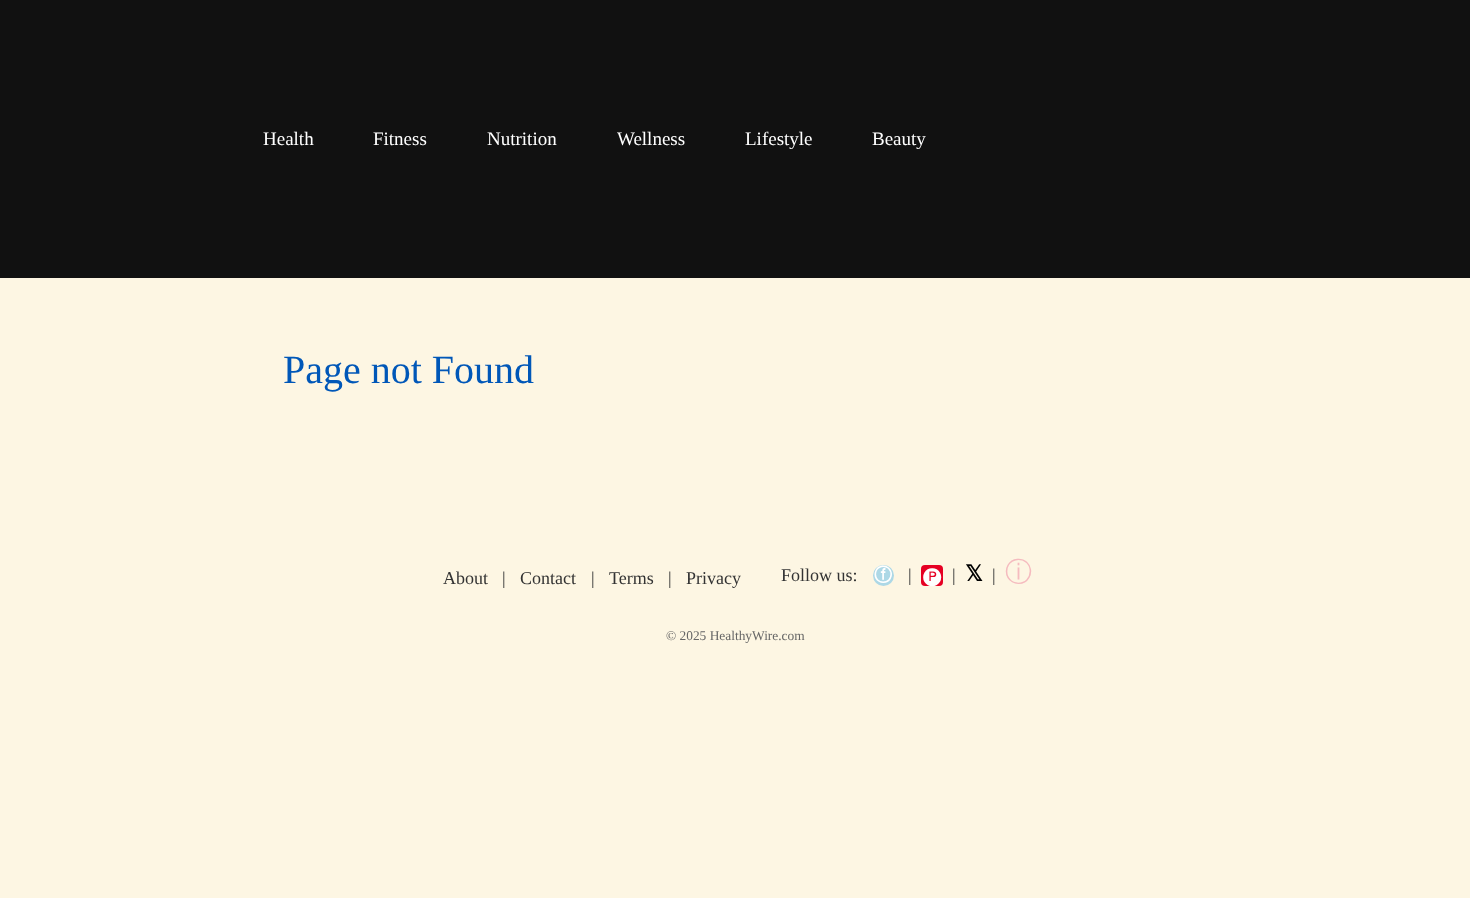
<svg xmlns="http://www.w3.org/2000/svg" xmlns:xlink="http://www.w3.org/1999/xlink" width="1470" height="898" viewBox="0 0 1470 898">
<style>
.cls-1{font:19px Liberation Serif;fill:#ffffff}
.cls-2{font:40px Liberation Serif;fill:#0057b8}
.cls-3{font:18px Liberation Serif;fill:#333333}
.cls-4{font:bold 18px WenQuanYi Zen Hei;fill:#ffffff}
.cls-5{font:18px FreeSans;fill:#ffffff}
.cls-6{font:bold 22px DejaVu Sans;fill:#000000}
.cls-7{font:500 27px WenQuanYi Zen Hei;fill:#f5bbbf}
.cls-8{font:13.4px Liberation Serif;fill:#666666}
</style>
<rect width="100%" height="100%" fill="#fdf6e3"/>
<rect fill="#111111" x="0" y="0" width="1470" height="278"/>
<circle fill="#add8e6" cx="883.5" cy="575.5" r="10.5"/>
<rect fill="#e60023" x="921" y="565" width="22" height="21" rx="4"/>
<text class="cls-1" x="263" y="145">Health</text>
<text class="cls-1" x="373" y="145">Fitness</text>
<text class="cls-1" x="487" y="145">Nutrition</text>
<text class="cls-1" x="617" y="145">Wellness</text>
<text class="cls-1" x="745" y="145">Lifestyle</text>
<text class="cls-1" x="872" y="145">Beauty</text>
<text class="cls-2" x="283" y="383">Page not Found</text>
<text class="cls-3" x="443" y="584">About</text>
<text class="cls-3" x="502" y="584">|</text>
<text class="cls-3" x="520" y="584">Contact</text>
<text class="cls-3" x="591" y="584">|</text>
<text class="cls-3" x="609" y="584">Terms</text>
<text class="cls-3" x="668" y="584">|</text>
<text class="cls-3" x="686" y="584">Privacy</text>
<text class="cls-3" x="781" y="581">Follow us:</text>
<text class="cls-4" x="874" y="581">ⓕ</text>
<text class="cls-3" x="908" y="581">|</text>
<text class="cls-5" x="923" y="581">🅟</text>
<text class="cls-3" x="952" y="581">|</text>
<text class="cls-6" x="965" y="581">𝕏</text>
<text class="cls-3" x="992" y="581">|</text>
<text class="cls-7" x="1005" y="581">ⓘ</text>
<text class="cls-8" x="666" y="640">© 2025 HealthyWire.com</text>
</svg>
